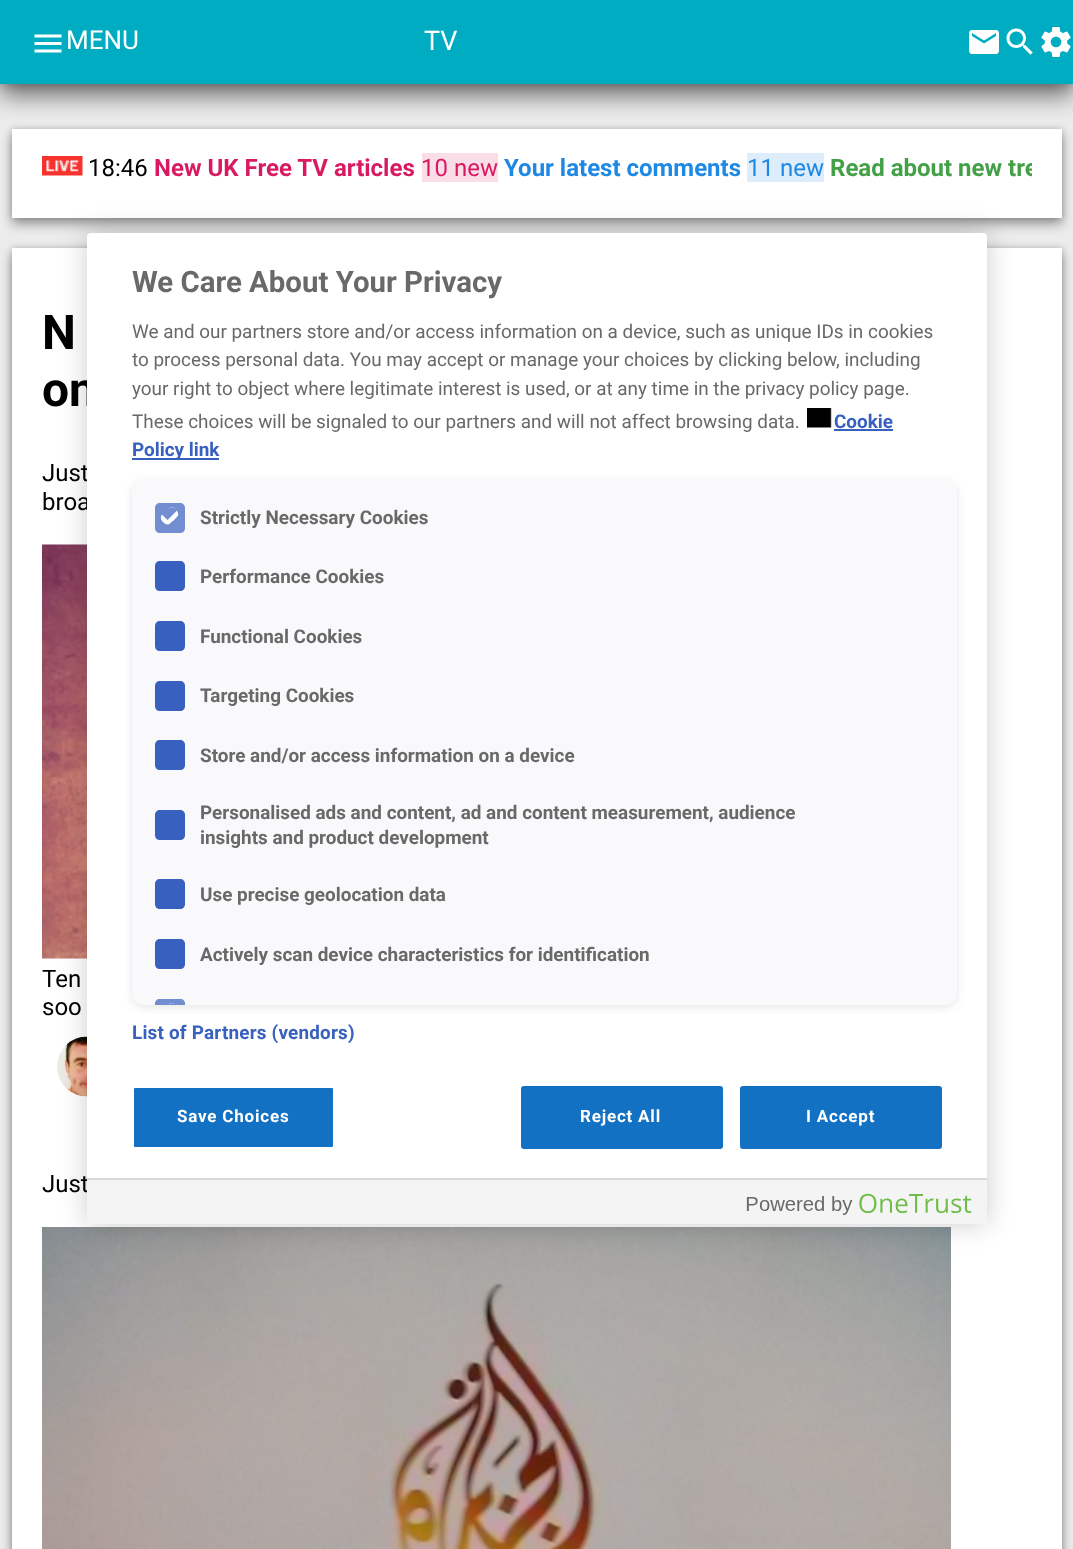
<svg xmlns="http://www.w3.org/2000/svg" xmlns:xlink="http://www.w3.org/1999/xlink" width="1073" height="1549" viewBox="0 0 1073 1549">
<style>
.cls-1{font:26px Roboto;fill:#ffffff}
.cls-2{font:27px Roboto;fill:#ffffff}
.cls-3{font:24px Roboto;fill:#000000}
.cls-4{font:bold 24px Roboto;fill:#d81b60}
.cls-5{font:24px Roboto;fill:#d81b60}
.cls-6{font:bold 24px Roboto;fill:#1e88e5}
.cls-7{font:24px Roboto;fill:#1e88e5}
.cls-8{font:bold 24px Roboto;fill:#43a047}
.cls-9{font:bold 48px Roboto;fill:#000000}
.cls-10{font:bold 29.4px Roboto;fill:#696969}
.cls-11{font:18.9px Roboto;fill:#696969}
.cls-12{font:bold 18.9px Roboto;fill:#3860be}
.cls-13{font:bold 18.9px Roboto;fill:#696969}
.cls-14{font:bold 18.9px Roboto;letter-spacing:0.2px;fill:#3860be}
.cls-15{font:bold 17px Roboto;letter-spacing:0.8px;fill:#ffffff}
</style>
<defs>
<clipPath id="clip1"><rect x="42" y="153" width="990" height="29"/></clipPath>
</defs>
<rect width="100%" height="100%" fill="#ececec"/>
<rect fill="#000000" fill-opacity="0.36" filter="blur(6px)" x="12" y="135" width="1050" height="89"/>
<rect fill="#000000" fill-opacity="0.18" filter="blur(3px)" x="12" y="129" width="1050" height="89"/>
<rect fill="#ffffff" x="12" y="129" width="1050" height="89"/>
<rect fill="#000000" fill-opacity="0.52" filter="blur(12px)" x="0" y="12" width="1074" height="84"/>
<rect fill="#000000" fill-opacity="0.26" filter="blur(6px)" x="0" y="0" width="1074" height="84"/>
<rect fill="#00acc1" x="0" y="0" width="1073" height="84"/>
<image xlink:href="image0.png" x="34" y="34" width="28" height="19"/>
<image xlink:href="image1.png" x="969" y="30" width="30" height="24"/>
<image xlink:href="image2.png" x="1006" y="28" width="27" height="27"/>
<image xlink:href="image3.png" x="1041" y="27" width="30" height="30"/>
<image xlink:href="image4.png" x="42" y="156" width="41" height="20"/>
<rect fill="#f9dde7" x="422" y="153" width="76" height="29"/>
<rect fill="#ddedfb" x="747" y="153" width="77" height="29"/>
<rect fill="#000000" fill-opacity="0.36" filter="blur(6px)" x="12" y="254" width="1050" height="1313"/>
<rect fill="#000000" fill-opacity="0.18" filter="blur(3px)" x="12" y="248" width="1050" height="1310"/>
<rect fill="#ffffff" x="12" y="248" width="1050" height="1301"/>
<image xlink:href="image5.png" x="42" y="544" width="45" height="415"/>
<image xlink:href="image6.png" x="57" y="1036" width="30" height="61"/>
<image xlink:href="image7.png" x="42" y="1227" width="909" height="322"/>
<rect fill="#000000" fill-opacity="0.2" filter="blur(13.5px)" x="87" y="233" width="900" height="991" rx="4"/>
<text class="cls-1" x="66" y="49">MENU</text>
<text class="cls-2" x="424" y="50">TV</text>
<text class="cls-3" x="88" y="176">18:46</text>
<text class="cls-4" x="154" y="176">New UK Free TV articles</text>
<text class="cls-5" x="421" y="176">10 new</text>
<text class="cls-6" x="504" y="176">Your latest comments</text>
<text class="cls-7" x="747" y="176">11 new</text>
<g clip-path="url(#clip1)">
<text class="cls-8" x="830" y="176">Read about new tre</text>
</g>
<text class="cls-9"><tspan x="42" y="349">N</tspan><tspan x="42" y="406">on</tspan></text>
<text class="cls-3"><tspan x="42" y="481">Just</tspan><tspan x="42" y="510">broa</tspan></text>
<text class="cls-3"><tspan x="42" y="987">Ten</tspan><tspan x="42" y="1015">soo</tspan></text>
<text class="cls-3" x="42" y="1192">Just</text>
<rect fill="#ffffff" x="87" y="233" width="900" height="991" rx="4"/>
<text class="cls-10" x="132" y="292">We Care About Your Privacy</text>
<text class="cls-11"><tspan x="132" y="338">We and our partners store and/or access information on a device, such as unique IDs in cookies</tspan><tspan x="132" y="366">to process personal data. You may accept or manage your choices by clicking below, including</tspan><tspan x="132" y="395">your right to object where legitimate interest is used, or at any time in the privacy policy page.</tspan><tspan x="132" y="428">These choices will be signaled to our partners and will not affect browsing data.</tspan></text>
<image xlink:href="image8.png" x="807" y="408" width="25" height="20"/>
<text class="cls-12" x="834" y="428">Cookie</text>
<rect fill="#3860be" x="834" y="429" width="59" height="2"/>
<rect fill="#3860be" x="132" y="458" width="87" height="2"/>
<text class="cls-12" x="132" y="456">Policy link</text>
<rect fill="#000000" fill-opacity="0.1" filter="blur(4.5px)" x="132" y="482" width="825" height="525" rx="12"/>
<rect fill="#f9f9fc" x="132" y="480" width="825" height="525" rx="12"/>
<path fill="#728ed1" d="M160 503H180C183 503 185 505 185 508V528C185 531 183 533 180 533H160C157 533 155 531 155 528V508C155 505 157 503 160 503Z"/>
<path fill="#fdfdfe" fill-rule="evenodd" d="M162 514.5L168.5 508.5C172.5 504.5 179.5 511 178 515.5C177 517.5 172.5 521.5 170.5 523C168 525.5 165.5 524.5 163.5 522.5C161.5 520.5 159.5 517.5 162 514.5ZM162 514.5L168.5 508.5C170 506.5 173 506.5 175 508.5L177 510.5L167.5 520Z"/>
<text class="cls-13" x="200" y="524">Strictly Necessary Cookies</text>
<path fill="#3860be" d="M160 561H180C183 561 185 563 185 566V586C185 589 183 591 180 591H160C157 591 155 589 155 586V566C155 563 157 561 160 561Z"/>
<text class="cls-13" x="200" y="583">Performance Cookies</text>
<path fill="#3860be" d="M160 621H180C183 621 185 623 185 626V646C185 649 183 651 180 651H160C157 651 155 649 155 646V626C155 623 157 621 160 621Z"/>
<text class="cls-13" x="200" y="643">Functional Cookies</text>
<path fill="#3860be" d="M160 681H180C183 681 185 683 185 686V706C185 709 183 711 180 711H160C157 711 155 709 155 706V686C155 683 157 681 160 681Z"/>
<text class="cls-13" x="200" y="702">Targeting Cookies</text>
<path fill="#3860be" d="M160 740H180C183 740 185 742 185 745V765C185 768 183 770 180 770H160C157 770 155 768 155 765V745C155 742 157 740 160 740Z"/>
<text class="cls-13" x="200" y="762">Store and/or access information on a device</text>
<path fill="#3860be" d="M160 810H180C183 810 185 812 185 815V835C185 838 183 840 180 840H160C157 840 155 838 155 835V815C155 812 157 810 160 810Z"/>
<text class="cls-13"><tspan x="200" y="819">Personalised ads and content, ad and content measurement, audience</tspan><tspan x="200" y="844">insights and product development</tspan></text>
<path fill="#3860be" d="M160 879H180C183 879 185 881 185 884V904C185 907 183 909 180 909H160C157 909 155 907 155 904V884C155 881 157 879 160 879Z"/>
<text class="cls-13" x="200" y="901">Use precise geolocation data</text>
<path fill="#3860be" d="M160 939H180C183 939 185 941 185 944V964C185 967 183 969 180 969H160C157 969 155 967 155 964V944C155 941 157 939 160 939Z"/>
<text class="cls-13" x="200" y="961">Actively scan device characteristics for identification</text>
<path fill="#728ed1" d="M160 999H180C183 999 185 1001 185 1004V1005H155V1004C155 1001 157 999 160 999Z"/>
<path fill="#728ed1" d="M160 999C156.5 999 155 1002 155 1005H185C185 1002 183.5 999 180 999Z"/>
<path fill="#fdfdfe" fill-rule="evenodd" d="M175.5 1005H175.5ZM175.5 1005C173 1003 170.5 1002.5 168.5 1004.5C170.5 1002 173.5 1003 175.5 1005Z"/>
<text class="cls-14" x="132" y="1039">List of Partners (vendors)</text>
<rect fill="#1371c3" stroke="#ffffff" stroke-width="2" x="133" y="1087" width="201" height="61" rx="2"/>
<text class="cls-15" x="177" y="1122">Save Choices</text>
<rect fill="#1371c3" stroke="#1371c3" stroke-width="2" x="522" y="1087" width="200" height="61" rx="2"/>
<text class="cls-15" x="580" y="1122">Reject All</text>
<rect fill="#1371c3" stroke="#1371c3" stroke-width="2" x="741" y="1087" width="200" height="61" rx="2"/>
<text class="cls-15" x="806" y="1122">I Accept</text>
<path fill="#f4f4f4" d="M87 1178H987V1220C987 1222 985 1224 983 1224H91C89 1224 87 1222 87 1220Z"/>
<rect fill="#d8d8d8" x="87" y="1178" width="900" height="2"/>
<image xlink:href="image9.png" x="746" y="1193" width="226" height="22"/>
</svg>
